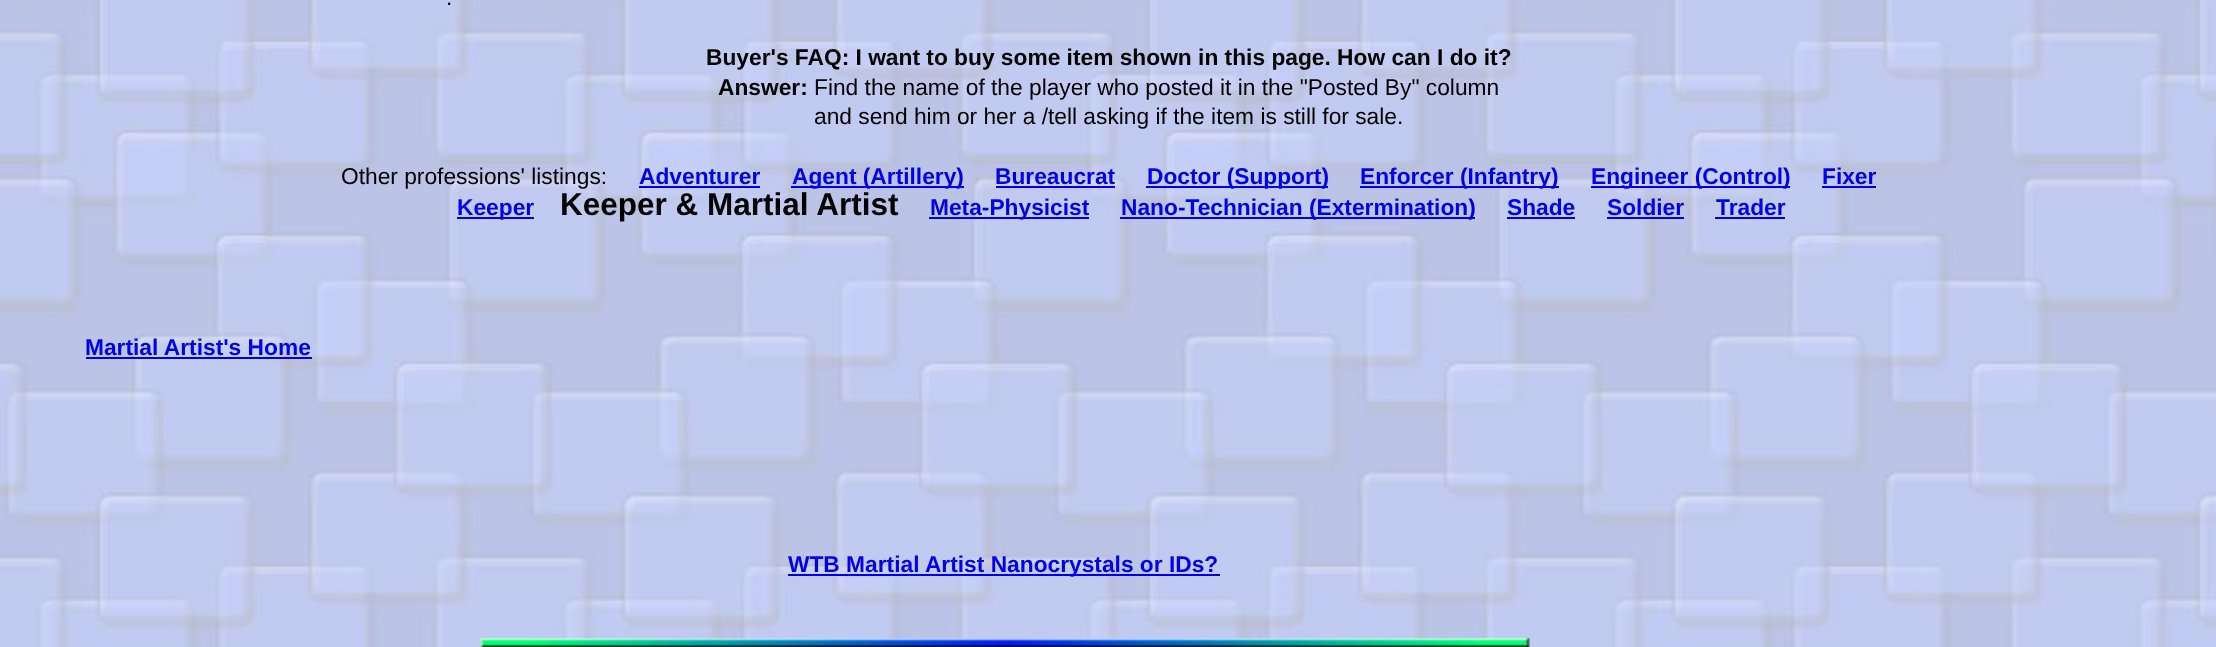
<svg xmlns="http://www.w3.org/2000/svg" xmlns:xlink="http://www.w3.org/1999/xlink" width="2216" height="647" viewBox="0 0 2216 647">
<style>
.cls-1{font:22.75px Liberation Sans;fill:#000000}
.cls-2{font:bold 22.75px Liberation Sans;fill:#000000}
.cls-3{font:bold 22.75px Liberation Sans;fill:#0000ee}
.cls-4{font:bold 31.5px Liberation Sans;fill:#000000}
</style>
<rect width="100%" height="100%" fill="#ffffff"/>
<image xlink:href="image0.png" x="0" y="0" width="2216" height="647"/>
<rect fill="#0000ee" x="639" y="186" width="121" height="2"/>
<rect fill="#0000ee" x="791" y="186" width="173" height="2"/>
<rect fill="#0000ee" x="996" y="186" width="119" height="2"/>
<rect fill="#0000ee" x="1146" y="186" width="182" height="2"/>
<rect fill="#0000ee" x="1360" y="186" width="199" height="2"/>
<rect fill="#0000ee" x="1591" y="186" width="199" height="2"/>
<rect fill="#0000ee" x="1822" y="186" width="54" height="2"/>
<rect fill="#0000ee" x="457" y="217" width="77" height="2"/>
<rect fill="#0000ee" x="929" y="217" width="160" height="2"/>
<rect fill="#0000ee" x="1120" y="217" width="355" height="2"/>
<rect fill="#0000ee" x="1507" y="217" width="68" height="2"/>
<rect fill="#0000ee" x="1607" y="217" width="77" height="2"/>
<rect fill="#0000ee" x="1715" y="217" width="70" height="2"/>
<rect fill="#0000ee" x="86" y="357" width="226" height="2"/>
<rect fill="#0000ee" x="788" y="574" width="432" height="2"/>
<image xlink:href="image1.png" x="479" y="638" width="1051" height="9"/>
<text class="cls-1" x="446" y="5">.</text>
<text class="cls-2" x="706" y="65">Buyer's FAQ: I want to buy some item shown in this page. How can I do it?</text>
<text class="cls-2" x="718" y="95">Answer:</text>
<text class="cls-1"><tspan x="814" y="95">Find the name of the player who posted it in the "Posted By" column</tspan><tspan x="814" y="124">and send him or her a /tell asking if the item is still for sale.</tspan></text>
<text class="cls-1" x="341" y="184">Other professions' listings:</text>
<text class="cls-3" x="639" y="184">Adventurer</text>
<text class="cls-3" x="792" y="184">Agent (Artillery)</text>
<text class="cls-3" x="995" y="184">Bureaucrat</text>
<text class="cls-3" x="1147" y="184">Doctor (Support)</text>
<text class="cls-3" x="1360" y="184">Enforcer (Infantry)</text>
<text class="cls-3" x="1591" y="184">Engineer (Control)</text>
<text class="cls-3" x="1822" y="184">Fixer</text>
<text class="cls-3" x="457" y="215">Keeper</text>
<text class="cls-4" x="560" y="215">Keeper &amp; Martial Artist</text>
<text class="cls-3" x="930" y="215">Meta-Physicist</text>
<text class="cls-3" x="1121" y="215">Nano-Technician (Extermination)</text>
<text class="cls-3" x="1507" y="215">Shade</text>
<text class="cls-3" x="1607" y="215">Soldier</text>
<text class="cls-3" x="1716" y="215">Trader</text>
<text class="cls-3" x="85" y="355">Martial Artist's Home</text>
<text class="cls-3" x="788" y="572">WTB Martial Artist Nanocrystals or IDs?</text>
</svg>
